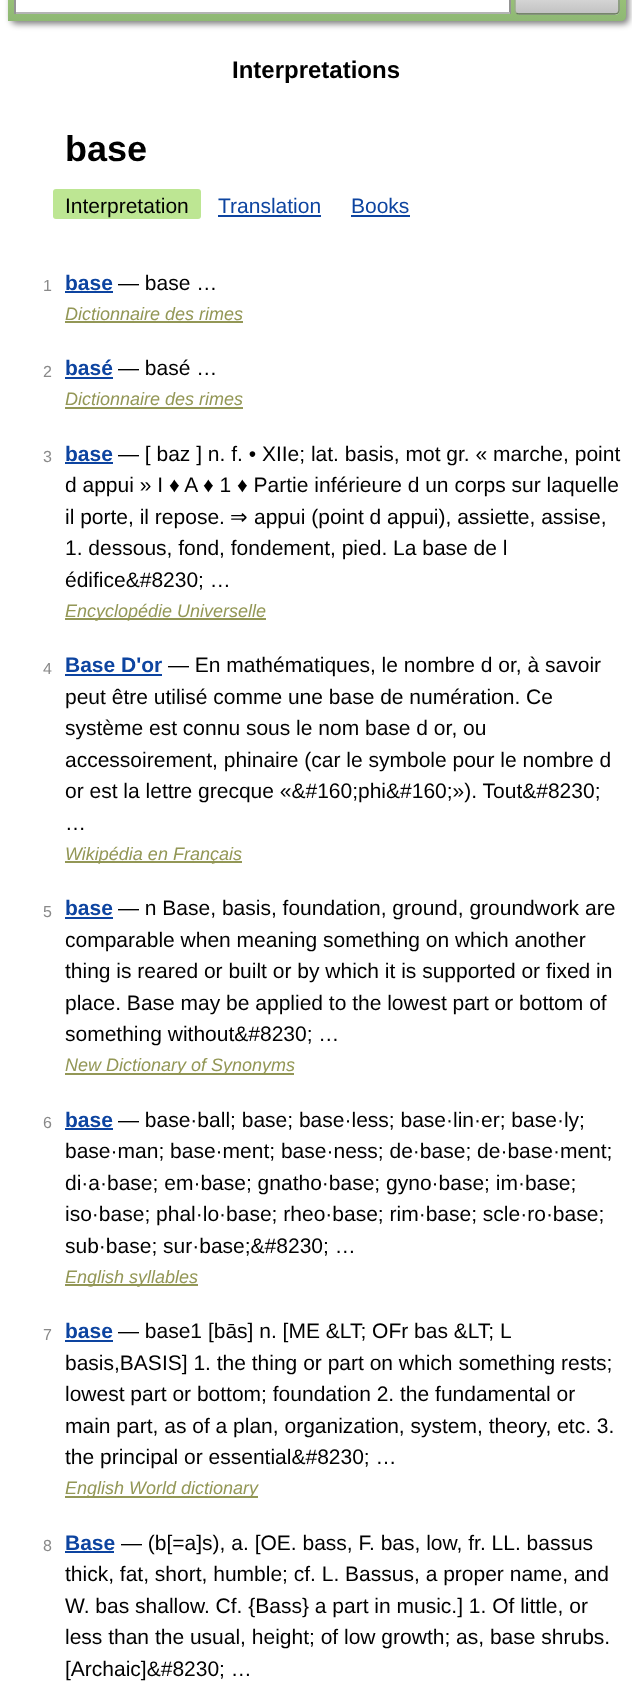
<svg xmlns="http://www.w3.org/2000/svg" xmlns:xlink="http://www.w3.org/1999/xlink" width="632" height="1686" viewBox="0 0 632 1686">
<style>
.cls-1{font:bold 24px Liberation Sans;fill:#000000}
.cls-2{font:bold 36px Liberation Sans;fill:#000000}
.cls-3{font:21px Liberation Sans;fill:#000000}
.cls-4{font:21px Liberation Sans;fill:#0d44a0}
.cls-5{font:16px Liberation Sans;fill:#898989}
.cls-6{font:bold 21px Liberation Sans;fill:#0d44a0}
.cls-7{font:italic 18px Liberation Sans;fill:#939756}
.cls-8{font:21px DejaVu Sans;fill:#000000}
</style>
<defs>
<linearGradient id="g1" gradientUnits="userSpaceOnUse" x1="317" y1="-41" x2="317" y2="21"><stop offset="0" stop-color="#abcf7e"/><stop offset="1" stop-color="#8eb874"/></linearGradient>
<clipPath id="clip1"><rect x="515" y="-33" width="105" height="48" rx="5"/></clipPath>
<linearGradient id="g2" gradientUnits="userSpaceOnUse" x1="567" y1="-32" x2="567" y2="14"><stop offset="0" stop-color="#ffffff"/><stop offset="1" stop-color="#c1c1c1"/></linearGradient>
<linearGradient id="g3" gradientUnits="userSpaceOnUse" x1="567" y1="13" x2="567" y2="59"><stop offset="0" stop-color="#ffffff"/><stop offset="1" stop-color="#c1c1c1"/></linearGradient>
</defs>
<rect width="100%" height="100%" fill="#ffffff"/>
<rect fill="#000000" fill-opacity="0.5" filter="blur(3px)" x="11" y="-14" width="618" height="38" rx="5"/>
<path fill="url(#g1)" d="M8-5H621C624-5 626-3 626 0V16C626 19 624 21 621 21H8Z"/>
<rect fill="#ffffff" x="16" y="0" width="493" height="12"/>
<rect fill="#949494" x="509" y="0" width="2" height="14"/>
<rect fill="#b4b4b4" x="14" y="12" width="496" height="2"/>
<rect fill="#949494" x="14" y="0" width="2" height="14"/>
<g clip-path="url(#clip1)">
<rect fill="url(#g2)" x="515" y="0" width="105" height="14"/>
<rect fill="url(#g3)" x="515" y="14" width="105" height="1"/>
</g>
<path fill="none" stroke="#7a8e69" stroke-width="1.5" d="M617.5-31C618.5-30.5 619-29.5 619-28.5V10.5C619 11.5 618.5 12.5 617.5 13"/>
<path fill="none" stroke="#5d7250" stroke-width="1.5" d="M617.5 13C617 14 616 14 615 14H519C518 14 517 14 516.5 13"/>
<path fill="none" stroke="#9aae89" stroke-width="1.5" d="M516.5 13C515.5 12.5 515 11.5 515 10.5V-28.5C515-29.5 515.5-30.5 516.5-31"/>
<rect fill="#bde693" x="53" y="189" width="148" height="30" rx="3"/>
<rect fill="#0d44a0" x="218" y="215" width="103" height="2"/>
<rect fill="#0d44a0" x="351" y="215" width="59" height="2"/>
<rect fill="#0d44a0" x="65" y="291" width="48" height="2"/>
<rect fill="#939756" x="65" y="321" width="178" height="2"/>
<rect fill="#0d44a0" x="65" y="377" width="48" height="2"/>
<rect fill="#939756" x="65" y="407" width="178" height="2"/>
<rect fill="#0d44a0" x="65" y="462" width="48" height="2"/>
<rect fill="#939756" x="65" y="618" width="201" height="2"/>
<rect fill="#0d44a0" x="65" y="674" width="97" height="2"/>
<rect fill="#939756" x="65" y="861" width="177" height="2"/>
<rect fill="#0d44a0" x="65" y="917" width="48" height="2"/>
<rect fill="#939756" x="65" y="1073" width="229" height="2"/>
<rect fill="#0d44a0" x="65" y="1128" width="48" height="2"/>
<rect fill="#939756" x="65" y="1284" width="133" height="2"/>
<rect fill="#0d44a0" x="65" y="1340" width="48" height="2"/>
<rect fill="#939756" x="65" y="1496" width="193" height="2"/>
<rect fill="#0d44a0" x="65" y="1551" width="49" height="2"/>
<text class="cls-1" x="232" y="78">Interpretations</text>
<text class="cls-2" x="65" y="161">base</text>
<text class="cls-3" x="65" y="213">Interpretation</text>
<text class="cls-4" x="218" y="213">Translation</text>
<text class="cls-4" x="351" y="213">Books</text>
<text class="cls-5" x="43" y="291">1</text>
<text class="cls-6" x="65" y="290">base</text>
<text class="cls-3" x="118" y="290">— base …</text>
<text class="cls-7" x="65" y="320">Dictionnaire des rimes</text>
<text class="cls-5" x="43" y="377">2</text>
<text class="cls-6" x="65" y="375">basé</text>
<text class="cls-3" x="118" y="375">— basé …</text>
<text class="cls-7" x="65" y="405">Dictionnaire des rimes</text>
<text class="cls-5" x="43" y="462">3</text>
<text class="cls-6" x="65" y="461">base</text>
<text class="cls-3" x="118" y="461">— [ baz ] n. f. • XIIe; lat. basis, mot gr. « marche, point</text>
<text class="cls-3"><tspan x="65" y="492">d appui » I ♦ A ♦ 1 ♦ Partie inférieure d un corps sur laquelle</tspan><tspan x="65" y="524">il porte, il repose.</tspan></text>
<text class="cls-8" x="230" y="524">⇒</text>
<text class="cls-3" x="254" y="524">appui (point d appui), assiette, assise,</text>
<text class="cls-3"><tspan x="65" y="555">1. dessous, fond, fondement, pied. La base de l</tspan><tspan x="65" y="587">édifice&amp;#8230; …</tspan></text>
<text class="cls-7" x="65" y="617">Encyclopédie Universelle</text>
<text class="cls-5" x="43" y="674">4</text>
<text class="cls-6" x="65" y="672">Base D'or</text>
<text class="cls-3" x="168" y="672">— En mathématiques, le nombre d or, à savoir</text>
<text class="cls-3"><tspan x="65" y="704">peut être utilisé comme une base de numération. Ce</tspan><tspan x="65" y="735">système est connu sous le nom base d or, ou</tspan><tspan x="65" y="767">accessoirement, phinaire (car le symbole pour le nombre d</tspan><tspan x="65" y="798">or est la lettre grecque «&amp;#160;phi&amp;#160;»). Tout&amp;#8230;</tspan><tspan x="65" y="830">…</tspan></text>
<text class="cls-7" x="65" y="860">Wikipédia en Français</text>
<text class="cls-5" x="43" y="917">5</text>
<text class="cls-6" x="65" y="915">base</text>
<text class="cls-3" x="118" y="915">— n Base, basis, foundation, ground, groundwork are</text>
<text class="cls-3"><tspan x="65" y="947">comparable when meaning something on which another</tspan><tspan x="65" y="978">thing is reared or built or by which it is supported or fixed in</tspan><tspan x="65" y="1010">place. Base may be applied to the lowest part or bottom of</tspan><tspan x="65" y="1041">something without&amp;#8230; …</tspan></text>
<text class="cls-7" x="65" y="1071">New Dictionary of Synonyms</text>
<text class="cls-5" x="43" y="1128">6</text>
<text class="cls-6" x="65" y="1127">base</text>
<text class="cls-3" x="118" y="1127">— base·ball; base; base·less; base·lin·er; base·ly;</text>
<text class="cls-3"><tspan x="65" y="1158">base·man; base·ment; base·ness; de·base; de·base·ment;</tspan><tspan x="65" y="1190">di·a·base; em·base; gnatho·base; gyno·base; im·base;</tspan><tspan x="65" y="1221">iso·base; phal·lo·base; rheo·base; rim·base; scle·ro·base;</tspan><tspan x="65" y="1253">sub·base; sur·base;&amp;#8230; …</tspan></text>
<text class="cls-7" x="65" y="1283">English syllables</text>
<text class="cls-5" x="43" y="1340">7</text>
<text class="cls-6" x="65" y="1338">base</text>
<text class="cls-3" x="118" y="1338">— base1 [bās] n. [ME &amp;LT; OFr bas &amp;LT; L</text>
<text class="cls-3"><tspan x="65" y="1370">basis,BASIS] 1. the thing or part on which something rests;</tspan><tspan x="65" y="1401">lowest part or bottom; foundation 2. the fundamental or</tspan><tspan x="65" y="1433">main part, as of a plan, organization, system, theory, etc. 3.</tspan><tspan x="65" y="1464">the principal or essential&amp;#8230; …</tspan></text>
<text class="cls-7" x="65" y="1494">English World dictionary</text>
<text class="cls-5" x="43" y="1551">8</text>
<text class="cls-6" x="65" y="1550">Base</text>
<text class="cls-3" x="121" y="1550">— (b[=a]s), a. [OE. bass, F. bas, low, fr. LL. bassus</text>
<text class="cls-3"><tspan x="65" y="1581">thick, fat, short, humble; cf. L. Bassus, a proper name, and</tspan><tspan x="65" y="1613">W. bas shallow. Cf. {Bass} a part in music.] 1. Of little, or</tspan><tspan x="65" y="1644">less than the usual, height; of low growth; as, base shrubs.</tspan><tspan x="65" y="1676">[Archaic]&amp;#8230; …</tspan></text>
</svg>
